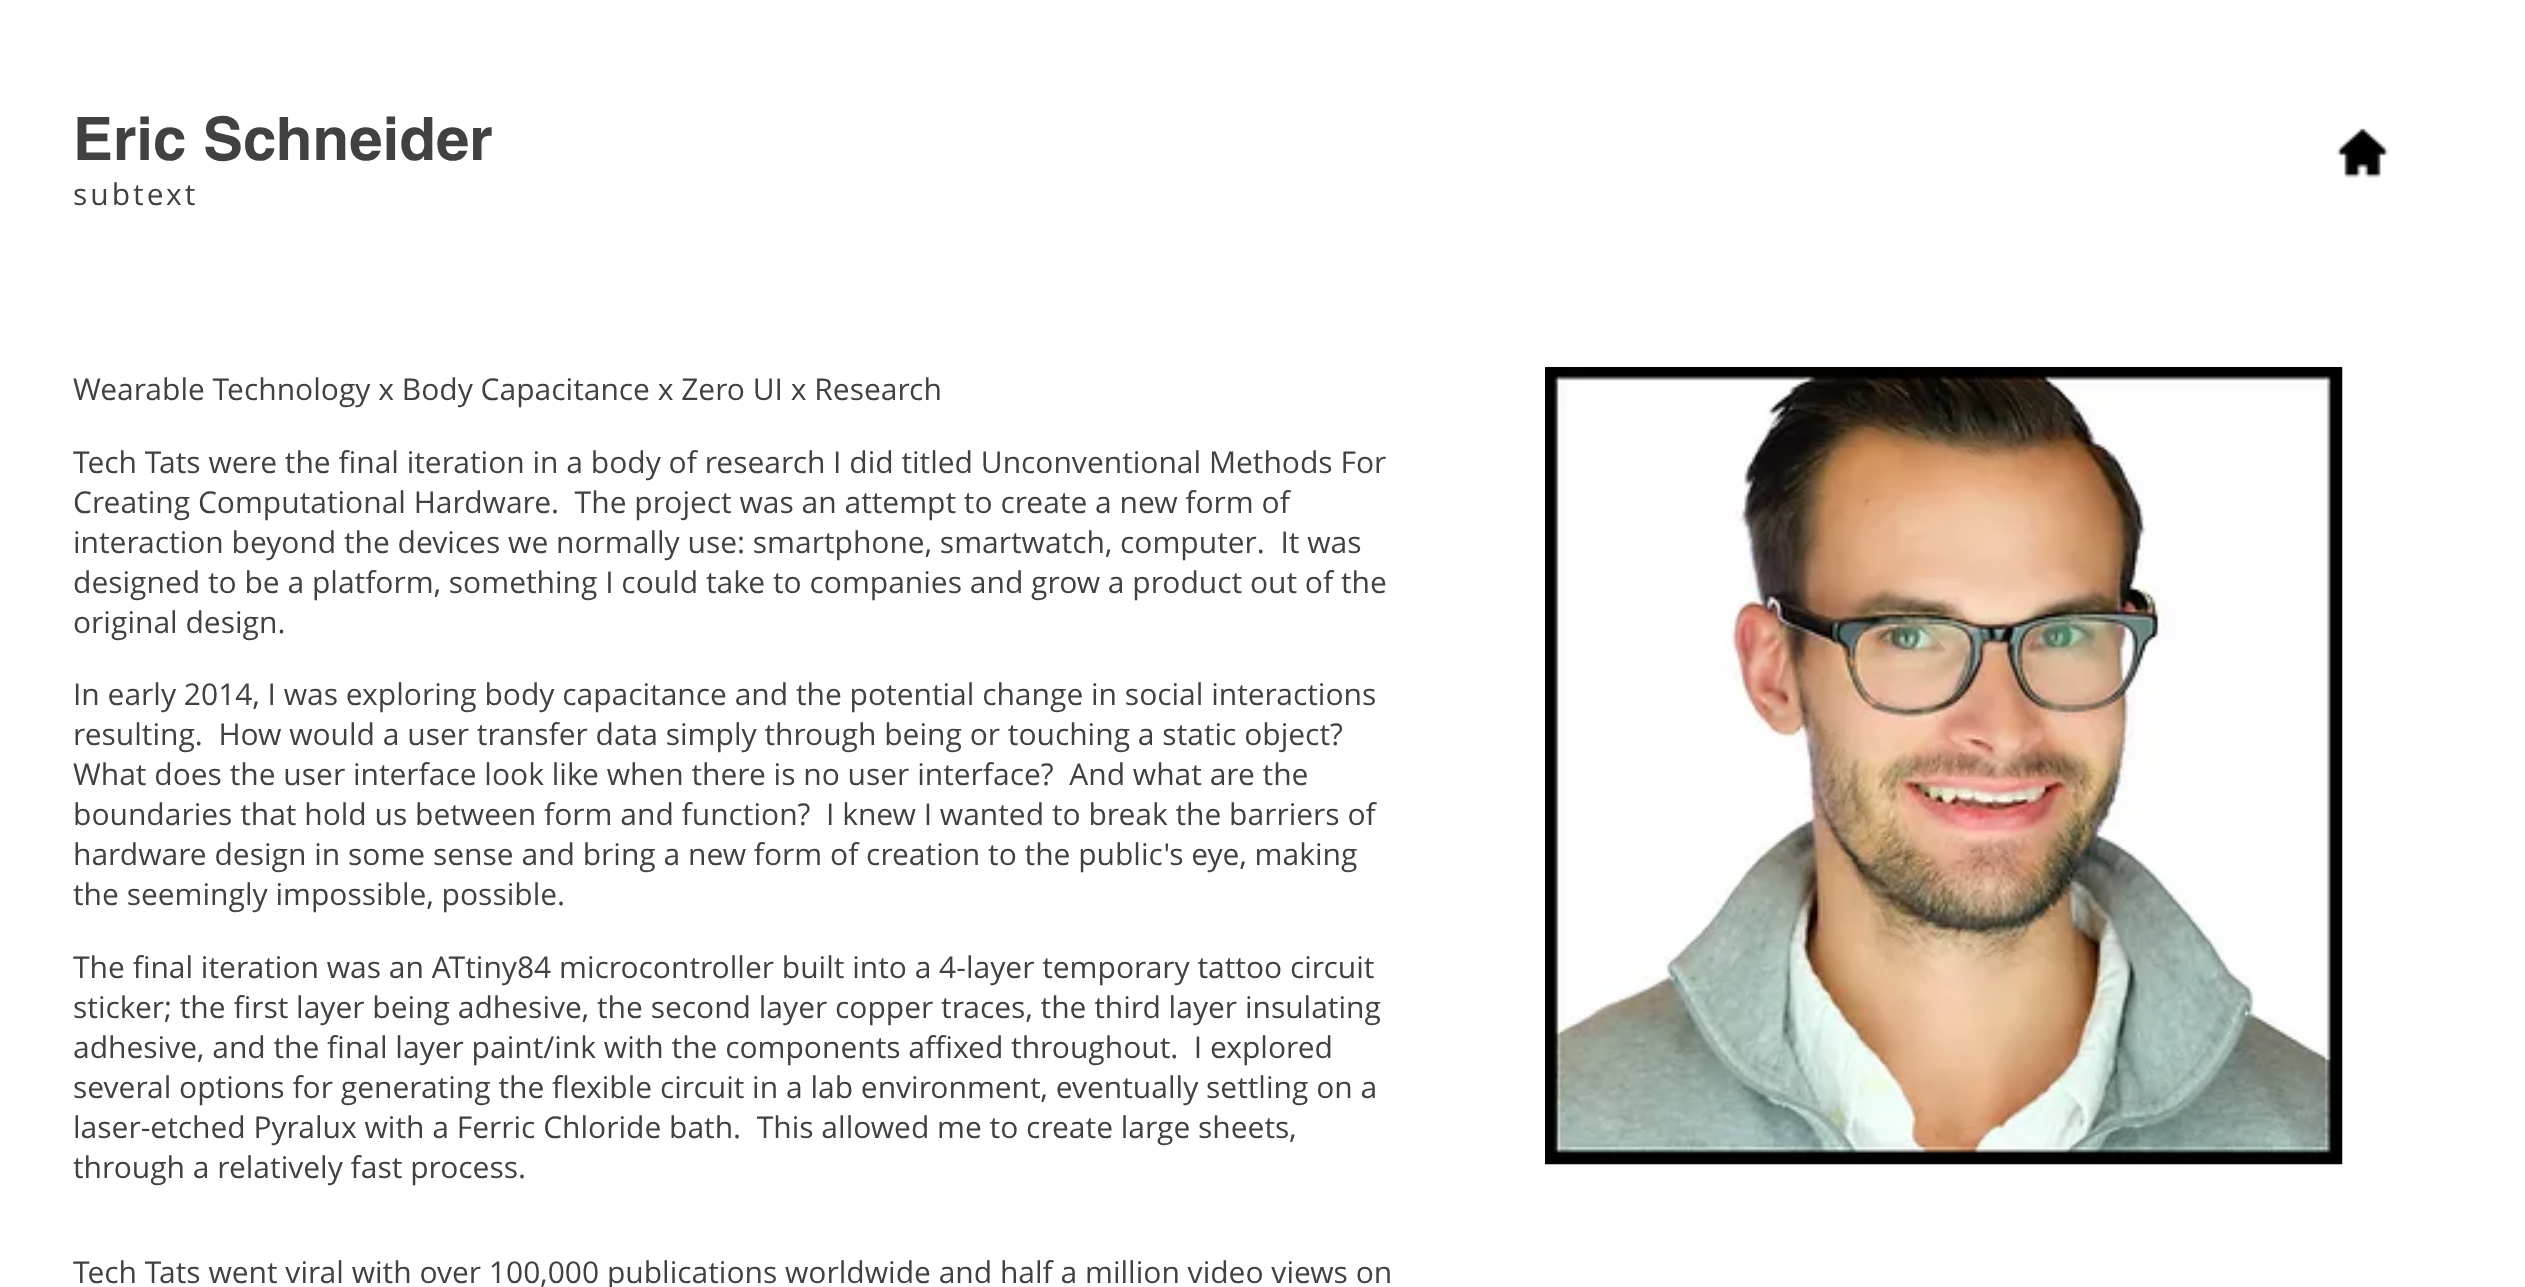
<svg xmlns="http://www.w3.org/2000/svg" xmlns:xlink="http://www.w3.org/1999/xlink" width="2525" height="1287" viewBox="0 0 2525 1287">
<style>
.cls-1{font:bold 60px helvetica;fill:#414141}
.cls-2{font:30px Open Sans;letter-spacing:3px;fill:#414141}
.cls-3{font:30px Open Sans;fill:#414141}
</style>
<rect width="100%" height="100%" fill="#ffffff"/>
<image xlink:href="image0.png" x="2337" y="127" width="52" height="51"/>
<image xlink:href="image1.png" x="1545" y="367" width="798" height="798"/>
<text class="cls-1" x="73" y="160">Eric Schneider</text>
<text class="cls-2" x="73" y="205">subtext</text>
<text class="cls-3" x="73" y="400">Wearable Technology x Body Capacitance x Zero UI x Research</text>
<text class="cls-3" xml:space="preserve"><tspan x="73" y="473">Tech Tats were the final iteration in a body of research I did titled Unconventional Methods For</tspan><tspan x="73" y="513">Creating Computational Hardware.  The project was an attempt to create a new form of</tspan><tspan x="73" y="553">interaction beyond the devices we normally use: smartphone, smartwatch, computer.  It was</tspan><tspan x="73" y="593">designed to be a platform, something I could take to companies and grow a product out of the</tspan><tspan x="73" y="633">original design.</tspan></text>
<text class="cls-3" xml:space="preserve"><tspan x="73" y="705">In early 2014, I was exploring body capacitance and the potential change in social interactions</tspan><tspan x="73" y="745">resulting.  How would a user transfer data simply through being or touching a static object?</tspan><tspan x="73" y="785">What does the user interface look like when there is no user interface?  And what are the</tspan><tspan x="73" y="825">boundaries that hold us between form and function?  I knew I wanted to break the barriers of</tspan><tspan x="73" y="865">hardware design in some sense and bring a new form of creation to the public's eye, making</tspan><tspan x="73" y="905">the seemingly impossible, possible.</tspan></text>
<text class="cls-3" xml:space="preserve"><tspan x="73" y="978">The final iteration was an ATtiny84 microcontroller built into a 4-layer temporary tattoo circuit</tspan><tspan x="73" y="1018">sticker; the first layer being adhesive, the second layer copper traces, the third layer insulating</tspan><tspan x="73" y="1058">adhesive, and the final layer paint/ink with the components affixed throughout.  I explored</tspan><tspan x="73" y="1098">several options for generating the flexible circuit in a lab environment, eventually settling on a</tspan><tspan x="73" y="1138">laser-etched Pyralux with a Ferric Chloride bath.  This allowed me to create large sheets,</tspan><tspan x="73" y="1178">through a relatively fast process.</tspan></text>
<text class="cls-3" x="73" y="1283">Tech Tats went viral with over 100,000 publications worldwide and half a million video views on</text>
</svg>
